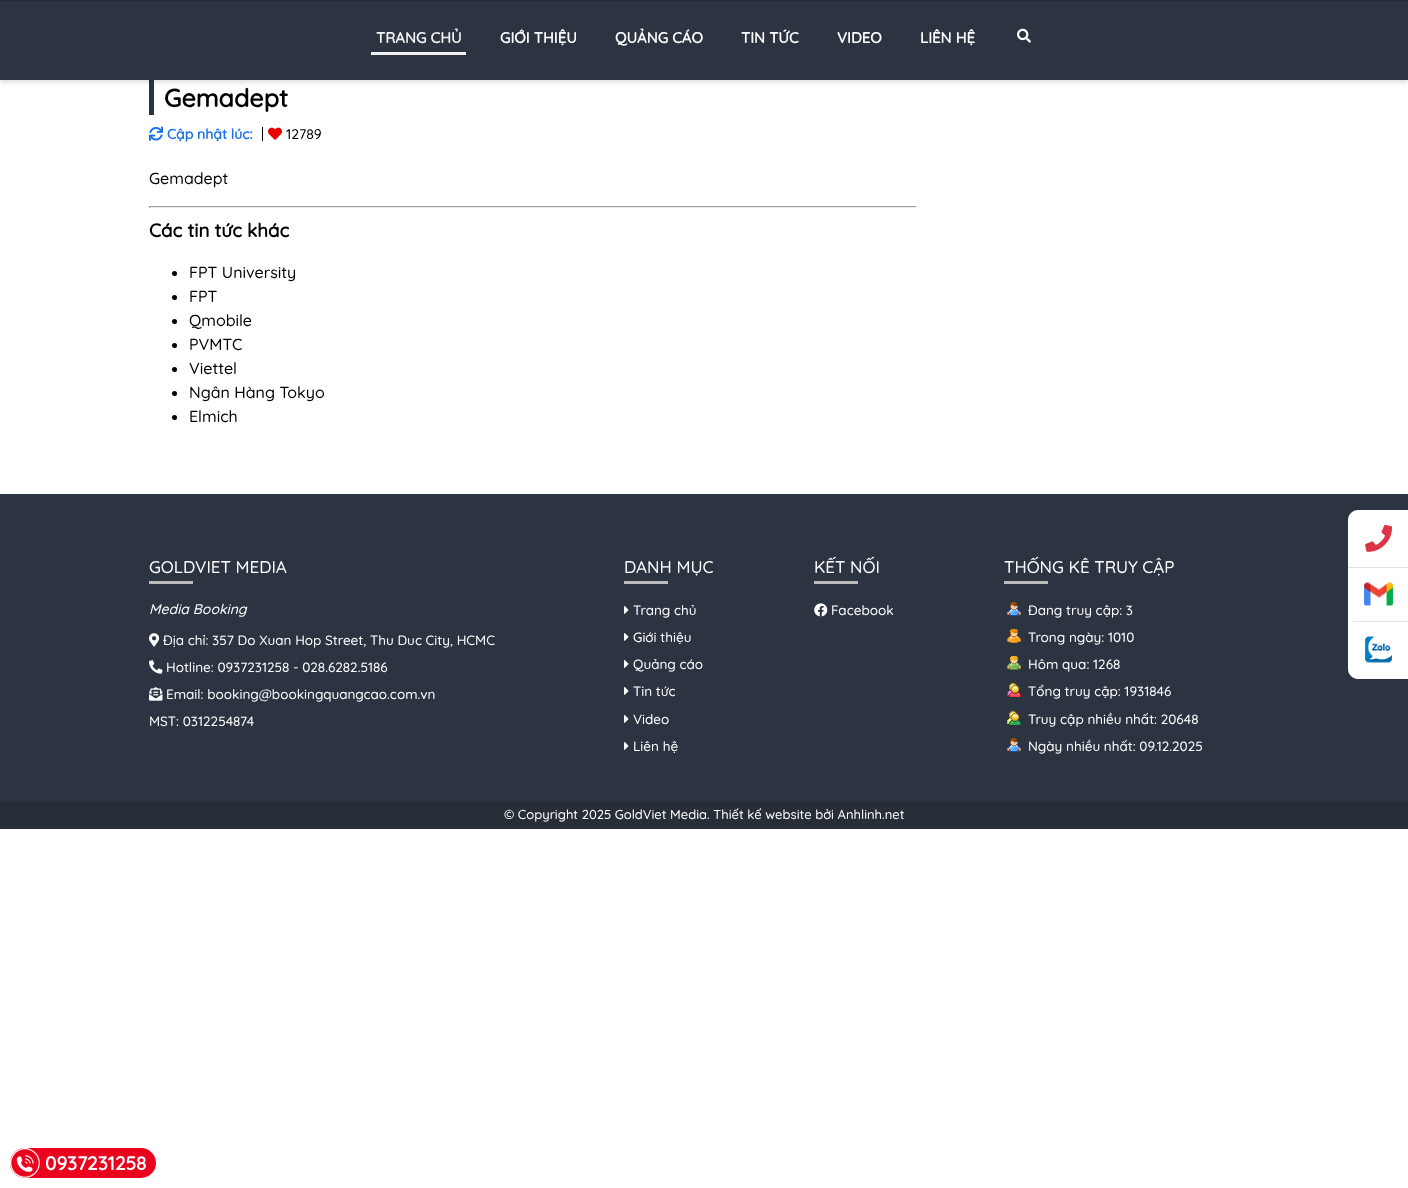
<svg xmlns="http://www.w3.org/2000/svg" xmlns:xlink="http://www.w3.org/1999/xlink" width="1408" height="1188" viewBox="0 0 1408 1188">
<style>
.cls-1{font:bold 15px Quicksand;fill:#f2f2f2}
.cls-2{font:bold 15px Quicksand;fill:#ffffff}
.cls-3{font:bold 25px Quicksand;fill:#000000}
.cls-4{font:bold 14px Quicksand;fill:#1a73e8}
.cls-5{font:500 14px Quicksand;fill:#000000}
.cls-6{font:500 16px Quicksand;fill:#000000}
.cls-7{font:bold 18.75px Quicksand;fill:#000000}
.cls-8{font:500 17px Quicksand;fill:#ffffff}
.cls-9{font:italic 500 14px Quicksand;fill:#ffffff}
.cls-10{font:500 13.5px Quicksand;fill:#ffffff}
.cls-11{font:bold 19px Quicksand;fill:#ffffff}
.cls-12{font:500 13px Quicksand;fill:#ffffff}
</style>
<rect width="100%" height="100%" fill="#ffffff"/>
<rect fill="#2c3442" x="149" y="80" width="5" height="35"/>
<rect fill="#000000" fill-opacity="0.15" filter="blur(2.5px)" x="0" y="2" width="1408" height="80"/>
<rect fill="#2c3442" x="0" y="1" width="1408" height="79"/>
<rect fill="#252c38" x="0" y="0" width="1408" height="1"/>
<rect fill="#f2f2f2" x="371" y="52" width="95" height="3"/>
<image xlink:href="image0.png" x="1017" y="28" width="14" height="15"/>
<image xlink:href="image1.png" x="149" y="126" width="14" height="15"/>
<rect fill="#000000" x="262" y="127" width="1" height="14"/>
<image xlink:href="image2.png" x="268" y="127" width="14" height="13"/>
<rect fill="#9f9f9f" x="149" y="206" width="768" height="1"/>
<rect fill="#eeeeee" x="916" y="206" width="1" height="2"/>
<rect fill="#eeeeee" x="149" y="207" width="768" height="1"/>
<rect fill="#9f9f9f" x="149" y="206" width="1" height="2"/>
<circle fill="#000000" cx="174.5" cy="273.5" r="2.5"/>
<circle fill="#000000" cx="174.5" cy="297.5" r="2.5"/>
<circle fill="#000000" cx="174.5" cy="321.5" r="2.5"/>
<circle fill="#000000" cx="174.5" cy="345.5" r="2.5"/>
<circle fill="#000000" cx="174.5" cy="369.5" r="2.5"/>
<circle fill="#000000" cx="174.5" cy="393.5" r="2.5"/>
<circle fill="#000000" cx="174.5" cy="417.5" r="2.5"/>
<rect fill="#2c3442" x="0" y="494" width="1408" height="307"/>
<rect fill="#bbbbbb" x="149" y="581" width="44" height="3"/>
<image xlink:href="image3.png" x="149" y="633" width="11" height="14"/>
<image xlink:href="image4.png" x="149" y="660" width="14" height="14"/>
<image xlink:href="image5.png" x="149" y="687" width="14" height="14"/>
<path fill="#ffffff" d="M1358 510H1408V679H1358C1352.5 679 1348 674.5 1348 669V520C1348 514.5 1352.5 510 1358 510Z"/>
<rect fill="#dee2e6" x="1348" y="567" width="60" height="1"/>
<image xlink:href="image6.png" x="1365" y="524" width="28" height="28"/>
<rect fill="#dee2e6" x="1353" y="621" width="55" height="1"/>
<image xlink:href="image7.png" x="1364" y="582" width="29" height="24"/>
<image xlink:href="image8.png" x="1365" y="636" width="27" height="27"/>
<rect fill="#eb021d" x="10" y="1148" width="146" height="30" rx="15"/>
<image xlink:href="image9.png" x="10" y="1148" width="30" height="30"/>
<rect fill="#bbbbbb" x="624" y="581" width="44" height="3"/>
<image xlink:href="image10.png" x="624" y="606" width="5" height="8"/>
<image xlink:href="image10.png" x="624" y="633" width="5" height="8"/>
<image xlink:href="image10.png" x="624" y="660" width="5" height="8"/>
<image xlink:href="image10.png" x="624" y="687" width="5" height="8"/>
<image xlink:href="image10.png" x="624" y="715" width="5" height="8"/>
<image xlink:href="image10.png" x="624" y="742" width="5" height="8"/>
<rect fill="#bbbbbb" x="814" y="581" width="44" height="3"/>
<image xlink:href="image11.png" x="814" y="603" width="14" height="14"/>
<rect fill="#bbbbbb" x="1004" y="581" width="44" height="3"/>
<image xlink:href="image12.png" x="1007" y="602" width="14" height="14"/>
<image xlink:href="image13.png" x="1007" y="629" width="14" height="14"/>
<image xlink:href="image14.png" x="1007" y="656" width="14" height="14"/>
<image xlink:href="image15.png" x="1007" y="683" width="14" height="14"/>
<image xlink:href="image16.png" x="1007" y="711" width="14" height="14"/>
<image xlink:href="image12.png" x="1007" y="738" width="14" height="14"/>
<rect fill="#282e38" x="0" y="801" width="1408" height="28"/>
<text class="cls-1" x="376" y="43">TRANG CHỦ</text>
<text class="cls-2" x="500" y="43">GIỚI THIỆU</text>
<text class="cls-2" x="615" y="43">QUẢNG CÁO</text>
<text class="cls-2" x="741" y="43">TIN TỨC</text>
<text class="cls-2" x="837" y="43">VIDEO</text>
<text class="cls-2" x="920" y="43">LIÊN HỆ</text>
<text class="cls-3" x="164" y="107">Gemadept</text>
<text class="cls-4" x="167" y="139">Cập nhật lúc:</text>
<text class="cls-5" x="286" y="139">12789</text>
<text class="cls-6" x="149" y="184">Gemadept</text>
<text class="cls-7" x="149" y="237">Các tin tức khác</text>
<text class="cls-6"><tspan x="189" y="278">FPT University</tspan><tspan x="189" y="302">FPT</tspan><tspan x="189" y="326">Qmobile</tspan><tspan x="189" y="350">PVMTC</tspan><tspan x="189" y="374">Viettel</tspan><tspan x="189" y="398">Ngân Hàng Tokyo</tspan><tspan x="189" y="422">Elmich</tspan></text>
<text class="cls-8" x="149" y="573">GOLDVIET MEDIA</text>
<text class="cls-9" x="149" y="614">Media Booking</text>
<text class="cls-10" x="163" y="645">Địa chỉ: 357 Do Xuan Hop Street, Thu Duc City, HCMC</text>
<text class="cls-10" x="166" y="672">Hotline: 0937231258 - 028.6282.5186</text>
<text class="cls-10" x="166" y="699">Email: booking@bookingquangcao.com.vn</text>
<text class="cls-10" x="149" y="726">MST: 0312254874</text>
<text class="cls-11" x="45" y="1170">0937231258</text>
<text class="cls-8" x="624" y="573">DANH MỤC</text>
<text class="cls-10" x="633" y="615">Trang chủ</text>
<text class="cls-10" x="633" y="642">Giới thiệu</text>
<text class="cls-10" x="633" y="669">Quảng cáo</text>
<text class="cls-10" x="633" y="696">Tin tức</text>
<text class="cls-10" x="633" y="724">Video</text>
<text class="cls-10" x="633" y="751">Liên hệ</text>
<text class="cls-8" x="814" y="573">KẾT NỐI</text>
<text class="cls-10" x="831" y="615">Facebook</text>
<text class="cls-8" x="1004" y="573">THỐNG KÊ TRUY CẬP</text>
<text class="cls-10" x="1028" y="615">Đang truy cập: 3</text>
<text class="cls-10" x="1028" y="642">Trong ngày: 1010</text>
<text class="cls-10" x="1028" y="669">Hôm qua: 1268</text>
<text class="cls-10" x="1028" y="696">Tổng truy cập: 1931846</text>
<text class="cls-10" x="1028" y="724">Truy cập nhiều nhất: 20648</text>
<text class="cls-10" x="1028" y="751">Ngày nhiều nhất: 09.12.2025</text>
<text class="cls-12" x="504" y="819">© Copyright 2025 GoldViet Media. Thiết kế website bởi Anhlinh.net</text>
</svg>
